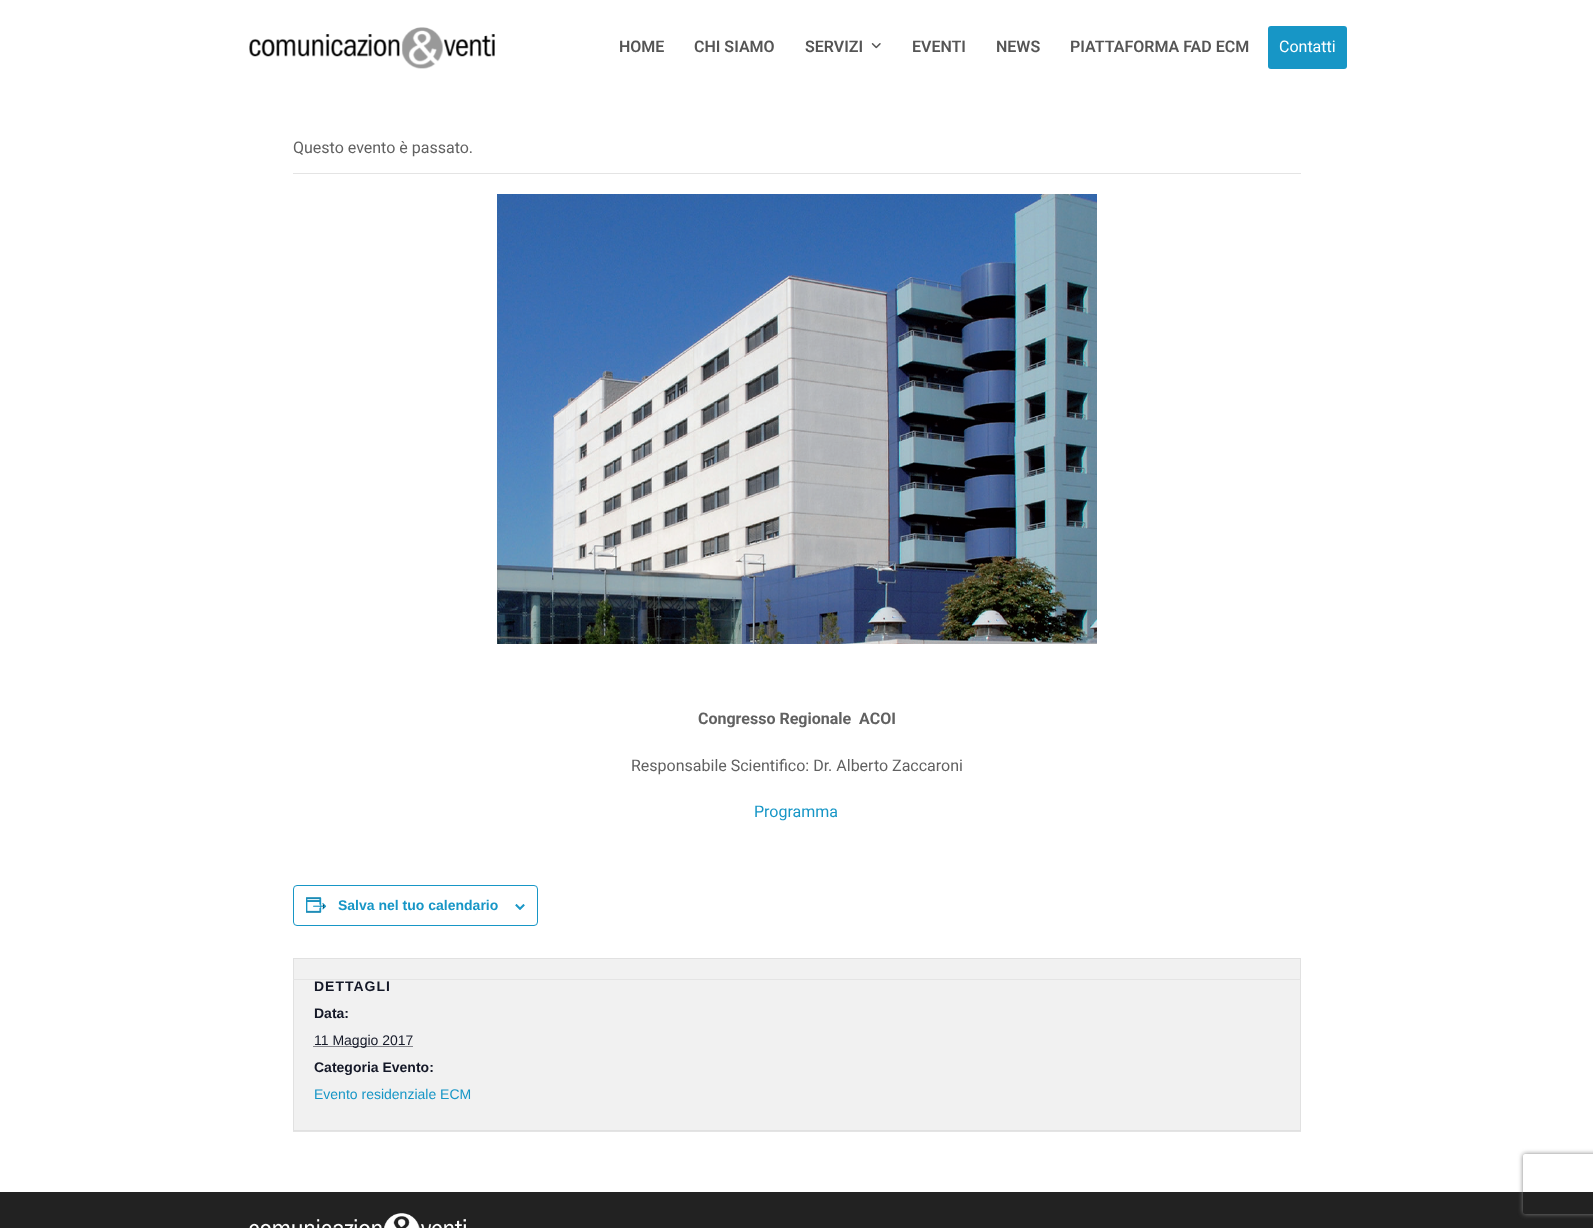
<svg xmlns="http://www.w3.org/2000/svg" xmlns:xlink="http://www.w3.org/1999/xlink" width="1593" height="1228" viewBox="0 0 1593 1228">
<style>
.cls-1{font:600 16px Roboto;fill:#555555}
.cls-2{font:16px Roboto;fill:#ffffff}
.cls-3{font:16px Roboto;fill:#616161}
.cls-4{font:bold 16px Roboto;fill:#616161}
.cls-5{font:16px Roboto;fill:#1796c6}
.cls-6{font:bold 14px Liberation Sans;fill:#1796c6}
.cls-7{font:bold 14px Liberation Sans;letter-spacing:1px;fill:#141827}
.cls-8{font:bold 14px Liberation Sans;fill:#141827}
.cls-9{font:14px Liberation Sans;fill:#141827}
.cls-10{font:14px Liberation Sans;fill:#1796c6}
</style>
<defs>
<clipPath id="clip1"><path d="M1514 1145H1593V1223H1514ZM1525 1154H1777C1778 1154 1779 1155 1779 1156V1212C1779 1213 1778 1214 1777 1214H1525C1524 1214 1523 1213 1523 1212V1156C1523 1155 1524 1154 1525 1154Z" clip-rule="evenodd"/></clipPath>
</defs>
<rect width="100%" height="100%" fill="#ffffff"/>
<image xlink:href="image0.png" x="249" y="27" width="246" height="42"/>
<image xlink:href="image1.png" x="871" y="43" width="10" height="6"/>
<rect fill="#1796c6" x="1268" y="26" width="79" height="43" rx="3"/>
<rect fill="#e4e4e4" x="293" y="173" width="1008" height="1"/>
<image xlink:href="image2.png" x="497" y="194" width="600" height="450"/>
<rect fill="none" stroke="#1796c6" x="293.5" y="885.5" width="244" height="40" rx="3.5"/>
<image xlink:href="image3.png" x="306" y="897" width="21" height="16"/>
<image xlink:href="image4.png" x="515" y="904" width="10" height="6"/>
<rect fill="#f1f1f1" stroke="#e1e1e1" x="293.5" y="958.5" width="1007" height="172"/>
<rect fill="#e4e4e4" x="293" y="979" width="1008" height="1"/>
<path fill="none" stroke="#141827" stroke-dasharray="1 1" d="M313.5 1046.5H413"/>
<rect fill="#e4e4e4" x="293" y="1131" width="1008" height="1"/>
<rect fill="#222222" x="0" y="1192" width="1593" height="36"/>
<image xlink:href="image5.png" x="249" y="1213" width="217" height="15"/>
<g clip-path="url(#clip1)">
<rect fill="#808080" filter="blur(2.5px)" x="1523" y="1154" width="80" height="60" rx="2"/>
</g>
<text class="cls-1" x="619" y="52">HOME</text>
<text class="cls-1" x="694" y="52">CHI SIAMO</text>
<text class="cls-1" x="805" y="52">SERVIZI</text>
<text class="cls-1" x="912" y="52">EVENTI</text>
<text class="cls-1" x="996" y="52">NEWS</text>
<text class="cls-1" x="1070" y="52">PIATTAFORMA FAD ECM</text>
<text class="cls-2" x="1279" y="52">Contatti</text>
<text class="cls-3" x="293" y="153">Questo evento è passato.</text>
<text class="cls-4" xml:space="preserve" x="698" y="724">Congresso Regionale  ACOI</text>
<text class="cls-3" x="631" y="771">Responsabile Scientifico: Dr. Alberto Zaccaroni</text>
<text class="cls-5" x="754" y="817">Programma</text>
<text class="cls-6" x="338" y="910">Salva nel tuo calendario</text>
<text class="cls-7" x="314" y="991">DETTAGLI</text>
<text class="cls-8" x="314" y="1018">Data:</text>
<text class="cls-9" x="314" y="1045">11 Maggio 2017</text>
<text class="cls-8" x="314" y="1072">Categoria Evento:</text>
<text class="cls-10" x="314" y="1099">Evento residenziale ECM</text>
</svg>
